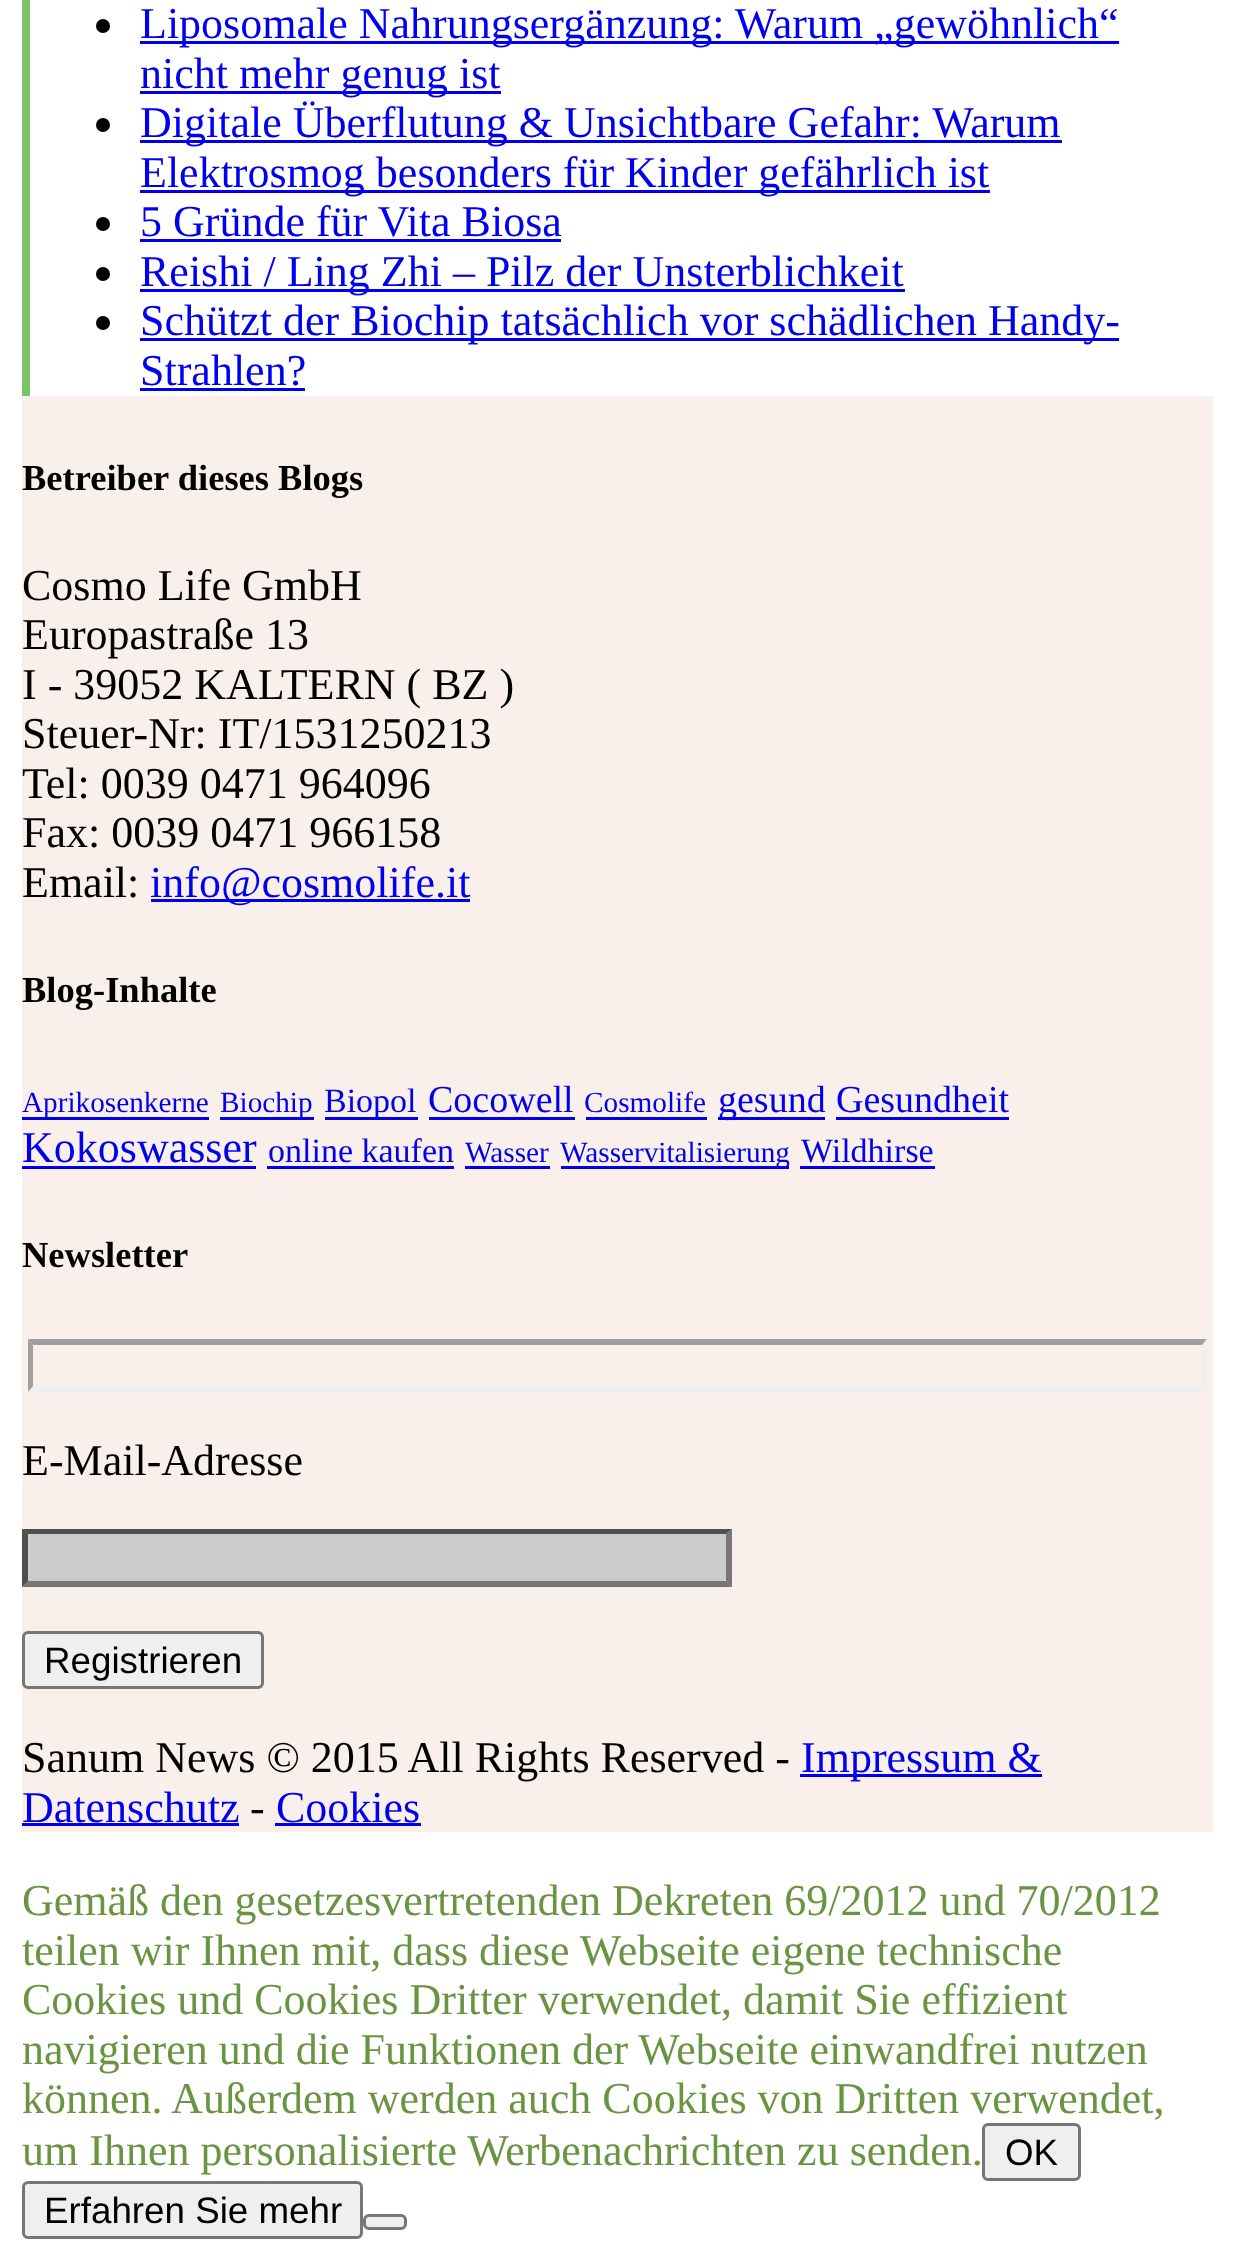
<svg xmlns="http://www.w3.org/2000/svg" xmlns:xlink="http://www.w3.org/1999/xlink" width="1233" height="2259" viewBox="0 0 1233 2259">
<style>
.cls-1{font:44px Liberation Serif;fill:#0000ee}
.cls-2{font:bold 36.5px Liberation Serif;fill:#000000}
.cls-3{font:44px Liberation Serif;fill:#000000}
.cls-4{font:29.25px Liberation Serif;fill:#0000ee}
.cls-5{font:34px Liberation Serif;fill:#0000ee}
.cls-6{font:38px Liberation Serif;fill:#0000ee}
.cls-7{font:36.75px Liberation Sans;fill:#000000}
.cls-8{font:44px Liberation Serif;fill:#699441}
</style>
<rect width="100%" height="100%" fill="#ffffff"/>
<rect fill="#f9efeb" x="22" y="396" width="1191" height="1436"/>
<rect fill="#7ac369" x="22" y="0" width="8" height="396"/>
<circle fill="#000000" cx="103" cy="26" r="7"/>
<rect fill="#0000ee" x="140" y="41" width="979" height="3"/>
<rect fill="#0000ee" x="140" y="91" width="361" height="3"/>
<circle fill="#000000" cx="103" cy="125" r="7"/>
<rect fill="#0000ee" x="140" y="140" width="922" height="3"/>
<rect fill="#0000ee" x="140" y="190" width="850" height="3"/>
<circle fill="#000000" cx="103" cy="224" r="7"/>
<rect fill="#0000ee" x="140" y="239" width="421" height="3"/>
<circle fill="#000000" cx="103" cy="274" r="7"/>
<rect fill="#0000ee" x="140" y="289" width="765" height="3"/>
<circle fill="#000000" cx="103" cy="323" r="7"/>
<rect fill="#0000ee" x="140" y="338" width="979" height="3"/>
<rect fill="#0000ee" x="140" y="388" width="165" height="3"/>
<rect fill="#0000ee" x="151" y="899" width="319" height="3"/>
<rect fill="#0000ee" x="22" y="1117" width="187" height="3"/>
<rect fill="#0000ee" x="220" y="1117" width="94" height="3"/>
<rect fill="#0000ee" x="325" y="1117" width="93" height="3"/>
<rect fill="#0000ee" x="429" y="1117" width="146" height="3"/>
<rect fill="#0000ee" x="586" y="1117" width="121" height="3"/>
<rect fill="#0000ee" x="718" y="1117" width="107" height="3"/>
<rect fill="#0000ee" x="836" y="1117" width="173" height="3"/>
<rect fill="#0000ee" x="22" y="1166" width="234" height="3"/>
<rect fill="#0000ee" x="267" y="1166" width="187" height="3"/>
<rect fill="#0000ee" x="465" y="1166" width="85" height="3"/>
<rect fill="#0000ee" x="561" y="1166" width="228" height="3"/>
<rect fill="#0000ee" x="800" y="1166" width="135" height="3"/>
<path fill="#9f9f9f" d="M28 1339H1207L1202 1345H33Z"/>
<path fill="#efefef" d="M1207 1339V1392L1202 1386V1345Z"/>
<path fill="#efefef" d="M1207 1392H28L33 1386H1202Z"/>
<path fill="#9f9f9f" d="M28 1392V1339L33 1345V1386Z"/>
<rect fill="#cccccc" x="22" y="1529" width="710" height="58"/>
<path fill="#4f4f4f" d="M22 1529H732L726 1534H28Z"/>
<path fill="#767676" d="M732 1529V1587L726 1581V1534Z"/>
<path fill="#767676" d="M732 1587H22L28 1581H726Z"/>
<path fill="#4f4f4f" d="M22 1587V1529L28 1534V1581Z"/>
<rect fill="#efefef" stroke="#767676" stroke-width="3" x="23.5" y="1632.5" width="239" height="55" rx="4.5"/>
<rect fill="#0000ee" x="800" y="1774" width="242" height="3"/>
<rect fill="#0000ee" x="22" y="1823" width="217" height="3"/>
<rect fill="#0000ee" x="275" y="1823" width="146" height="3"/>
<rect fill="#efefef" stroke="#767676" stroke-width="3" x="983.5" y="2124.5" width="96" height="55" rx="4.5"/>
<rect fill="#efefef" stroke="#767676" stroke-width="3" x="23.5" y="2182.5" width="338" height="55" rx="4.5"/>
<rect fill="#efefef" stroke="#767676" stroke-width="3" x="364.5" y="2215.5" width="41" height="13" rx="4.5"/>
<text class="cls-1"><tspan x="140" y="38">Liposomale Nahrungsergänzung: Warum „gewöhnlich“</tspan><tspan x="140" y="88">nicht mehr genug ist</tspan><tspan x="140" y="137">Digitale Überflutung &amp; Unsichtbare Gefahr: Warum</tspan><tspan x="140" y="187">Elektrosmog besonders für Kinder gefährlich ist</tspan><tspan x="140" y="236">5 Gründe für Vita Biosa</tspan><tspan x="140" y="286">Reishi / Ling Zhi – Pilz der Unsterblichkeit</tspan><tspan x="140" y="335">Schützt der Biochip tatsächlich vor schädlichen Handy-</tspan><tspan x="140" y="385">Strahlen?</tspan></text>
<text class="cls-2" x="22" y="490">Betreiber dieses Blogs</text>
<text class="cls-3"><tspan x="22" y="600">Cosmo Life GmbH</tspan><tspan x="22" y="649">Europastraße 13</tspan><tspan x="22" y="699">I - 39052 KALTERN ( BZ )</tspan><tspan x="22" y="748">Steuer-Nr: IT/1531250213</tspan><tspan x="22" y="798">Tel: 0039 0471 964096</tspan><tspan x="22" y="847">Fax: 0039 0471 966158</tspan><tspan x="22" y="897">Email:</tspan></text>
<text class="cls-1" x="150" y="897">info@cosmolife.it</text>
<text class="cls-2" x="22" y="1002">Blog-Inhalte</text>
<text class="cls-4" x="22" y="1112">Aprikosenkerne</text>
<text class="cls-4" x="220" y="1112">Biochip</text>
<text class="cls-5" x="324" y="1112">Biopol</text>
<text class="cls-6" x="428" y="1112">Cocowell</text>
<text class="cls-4" x="584" y="1112">Cosmolife</text>
<text class="cls-6" x="718" y="1112">gesund</text>
<text class="cls-6" x="836" y="1112">Gesundheit</text>
<text class="cls-1" x="22" y="1162">Kokoswasser</text>
<text class="cls-5" x="268" y="1162">online kaufen</text>
<text class="cls-4" x="465" y="1162">Wasser</text>
<text class="cls-4" x="560" y="1162">Wasservitalisierung</text>
<text class="cls-5" x="801" y="1162">Wildhirse</text>
<text class="cls-2" x="22" y="1267">Newsletter</text>
<text class="cls-3" x="22" y="1475">E-Mail-Adresse</text>
<text class="cls-7" x="44" y="1673">Registrieren</text>
<text class="cls-3" x="22" y="1772">Sanum News © 2015 All Rights Reserved -</text>
<text class="cls-1" x="801" y="1772">Impressum &amp;</text>
<text class="cls-1" x="22" y="1822">Datenschutz</text>
<text class="cls-3" x="250" y="1822">-</text>
<text class="cls-1" x="276" y="1822">Cookies</text>
<text class="cls-8"><tspan x="22" y="1915">Gemäß den gesetzesvertretenden Dekreten 69/2012 und 70/2012</tspan><tspan x="22" y="1965">teilen wir Ihnen mit, dass diese Webseite eigene technische</tspan><tspan x="22" y="2014">Cookies und Cookies Dritter verwendet, damit Sie effizient</tspan><tspan x="22" y="2064">navigieren und die Funktionen der Webseite einwandfrei nutzen</tspan><tspan x="22" y="2113">können. Außerdem werden auch Cookies von Dritten verwendet,</tspan><tspan x="22" y="2165">um Ihnen personalisierte Werbenachrichten zu senden.</tspan></text>
<text class="cls-7" x="1005" y="2165">OK</text>
<text class="cls-7" x="44" y="2223">Erfahren Sie mehr</text>
</svg>
